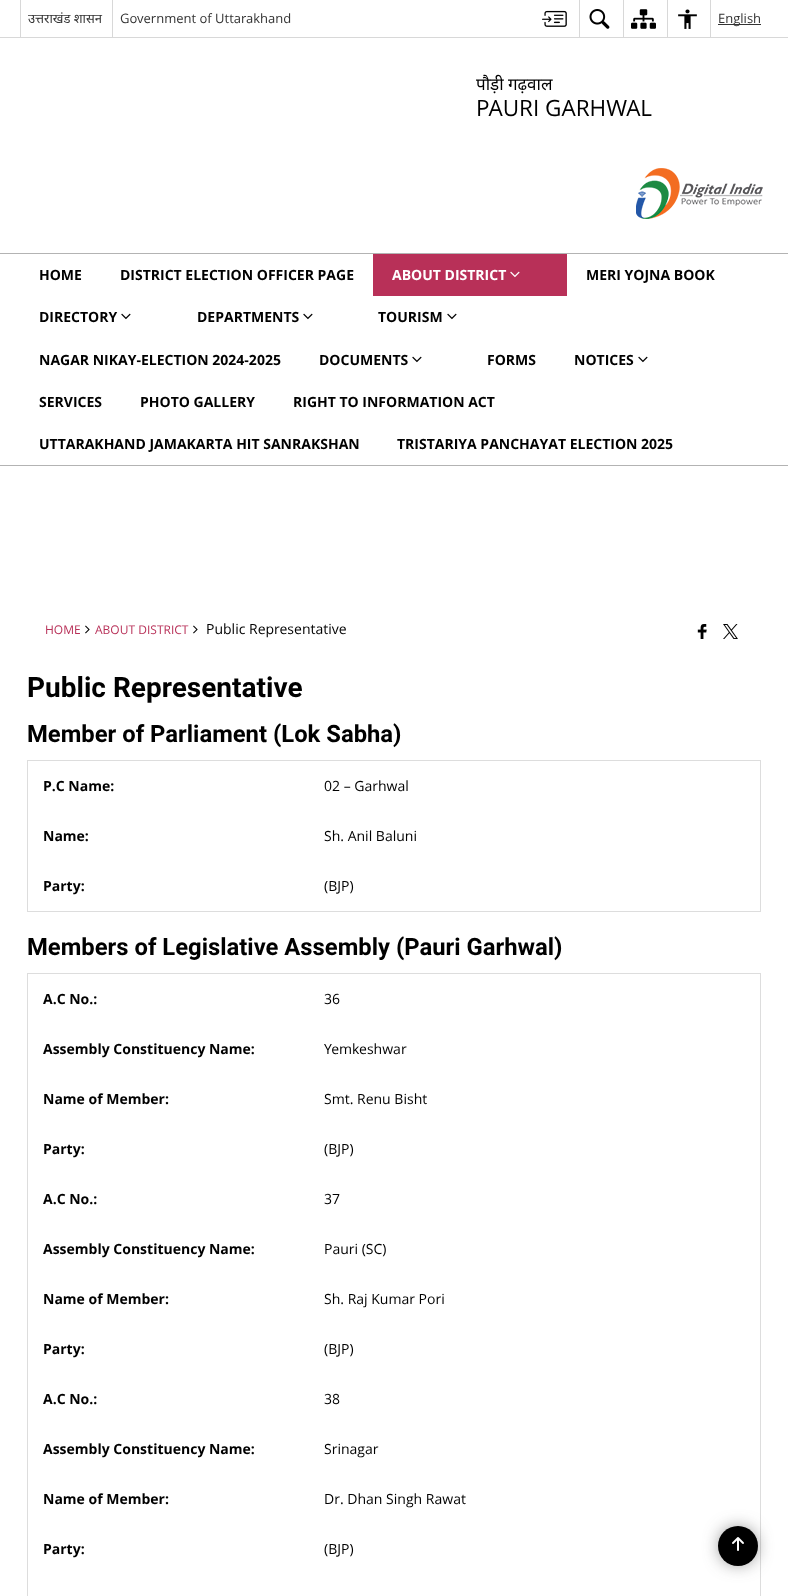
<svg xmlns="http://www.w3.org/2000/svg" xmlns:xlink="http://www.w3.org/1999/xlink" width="788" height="1596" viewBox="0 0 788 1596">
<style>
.cls-1{font:13px Noto Sans;fill:#333333}
.cls-2{font:13px Open Sans;fill:#333333}
.cls-3{font:17px Noto Sans;fill:#000000}
.cls-4{font:22.5px Open Sans;fill:#000000}
.cls-5{font:bold 14px Open Sans;fill:#000000}
.cls-6{font:bold 14px Open Sans;fill:#ffffff}
.cls-7{font:12px Open Sans;fill:#b83058}
.cls-8{font:14px Open Sans;fill:#000000}
.cls-9{font:bold 28px Roboto;fill:#000000}
.cls-10{font:bold 23.8px Roboto;fill:#000000}
</style>
<rect width="100%" height="100%" fill="#ffffff"/>
<rect fill="#d8d8d8" x="0" y="37" width="788" height="1"/>
<rect fill="#d8d8d8" x="20" y="0" width="1" height="37"/>
<rect fill="#d8d8d8" x="112" y="0" width="1" height="37"/>
<image xlink:href="image0.png" x="542" y="10" width="25" height="17"/>
<rect fill="#d8d8d8" x="579" y="0" width="1" height="37"/>
<image xlink:href="image1.png" x="589" y="9" width="21" height="20"/>
<rect fill="#d8d8d8" x="623" y="0" width="1" height="37"/>
<image xlink:href="image2.png" x="631" y="9" width="25" height="20"/>
<rect fill="#d8d8d8" x="667" y="0" width="1" height="37"/>
<image xlink:href="image3.png" x="678" y="9" width="19" height="20"/>
<rect fill="#d8d8d8" x="710" y="0" width="1" height="37"/>
<rect fill="#333333" x="718" y="24" width="43" height="1"/>
<image xlink:href="image4.png" x="636" y="168" width="127" height="51"/>
<rect fill="#b3b3b3" x="0" y="253" width="788" height="1"/>
<rect fill="#b3b3b3" x="0" y="465" width="788" height="1"/>
<rect fill="#b83058" x="373" y="254" width="194" height="42"/>
<image xlink:href="image5.png" x="510" y="271" width="10" height="7"/>
<image xlink:href="image6.png" x="121" y="313" width="10" height="7"/>
<image xlink:href="image6.png" x="303" y="313" width="10" height="7"/>
<image xlink:href="image6.png" x="447" y="313" width="10" height="7"/>
<image xlink:href="image6.png" x="412" y="356" width="10" height="7"/>
<image xlink:href="image6.png" x="638" y="356" width="10" height="7"/>
<image xlink:href="image7.png" x="85" y="625" width="5" height="9"/>
<image xlink:href="image7.png" x="193" y="625" width="5" height="9"/>
<image xlink:href="image8.png" x="697" y="624" width="10" height="15"/>
<image xlink:href="image9.png" x="723" y="624" width="15" height="15"/>
<rect fill="#dddddd" x="27" y="760" width="734" height="1"/>
<rect fill="#dddddd" x="760" y="760" width="1" height="152"/>
<rect fill="#dddddd" x="27" y="911" width="734" height="1"/>
<rect fill="#dddddd" x="27" y="760" width="1" height="152"/>
<rect fill="#dddddd" x="27" y="973" width="734" height="1"/>
<rect fill="#dddddd" x="760" y="973" width="1" height="623"/>
<rect fill="#dddddd" x="27" y="973" width="1" height="623"/>
<rect fill="#3c3c3c" filter="blur(9.5px)" x="723" y="1531" width="30" height="30" rx="15"/>
<circle fill="#000000" cx="738" cy="1546" r="20"/>
<image xlink:href="image10.png" x="732" y="1537" width="12" height="14"/>
<text class="cls-1" x="28" y="23">उत्तराखंड शासन</text>
<text class="cls-2" x="120" y="23">Government of Uttarakhand</text>
<text class="cls-2" x="718" y="23">English</text>
<text class="cls-3" x="476" y="90">पौड़ी गढ़वाल</text>
<text class="cls-4" x="476" y="116">PAURI GARHWAL</text>
<text class="cls-5" x="39" y="280">HOME</text>
<text class="cls-5" x="120" y="280">DISTRICT ELECTION OFFICER PAGE</text>
<text class="cls-6" x="392" y="280">ABOUT DISTRICT</text>
<text class="cls-5" x="586" y="280">MERI YOJNA BOOK</text>
<text class="cls-5" x="39" y="322">DIRECTORY</text>
<text class="cls-5" x="197" y="322">DEPARTMENTS</text>
<text class="cls-5" x="378" y="322">TOURISM</text>
<text class="cls-5" x="39" y="365">NAGAR NIKAY-ELECTION 2024-2025</text>
<text class="cls-5" x="319" y="365">DOCUMENTS</text>
<text class="cls-5" x="487" y="365">FORMS</text>
<text class="cls-5" x="574" y="365">NOTICES</text>
<text class="cls-5" x="39" y="407">SERVICES</text>
<text class="cls-5" x="140" y="407">PHOTO GALLERY</text>
<text class="cls-5" x="293" y="407">RIGHT TO INFORMATION ACT</text>
<text class="cls-5" x="39" y="449">UTTARAKHAND JAMAKARTA HIT SANRAKSHAN</text>
<text class="cls-5" x="397" y="449">TRISTARIYA PANCHAYAT ELECTION 2025</text>
<text class="cls-7" x="45" y="634">HOME</text>
<text class="cls-7" x="95" y="634">ABOUT DISTRICT</text>
<text class="cls-8" x="206" y="634">Public Representative</text>
<text class="cls-9" x="27" y="697">Public Representative</text>
<text class="cls-10" x="27" y="742">Member of Parliament (Lok Sabha)</text>
<text class="cls-5" x="43" y="791">P.C Name:</text>
<text class="cls-8" x="324" y="791">02 – Garhwal</text>
<text class="cls-5" x="43" y="841">Name:</text>
<text class="cls-8" x="324" y="841">Sh. Anil Baluni</text>
<text class="cls-5" x="43" y="891">Party:</text>
<text class="cls-8" x="324" y="891">(BJP)</text>
<text class="cls-10" x="27" y="955">Members of Legislative Assembly (Pauri Garhwal)</text>
<text class="cls-5" x="43" y="1004">A.C No.:</text>
<text class="cls-8" x="324" y="1004">36</text>
<text class="cls-5" x="43" y="1054">Assembly Constituency Name:</text>
<text class="cls-8" x="324" y="1054">Yemkeshwar</text>
<text class="cls-5" x="43" y="1104">Name of Member:</text>
<text class="cls-8" x="324" y="1104">Smt. Renu Bisht</text>
<text class="cls-5" x="43" y="1154">Party:</text>
<text class="cls-8" x="324" y="1154">(BJP)</text>
<text class="cls-5" x="43" y="1204">A.C No.:</text>
<text class="cls-8" x="324" y="1204">37</text>
<text class="cls-5" x="43" y="1254">Assembly Constituency Name:</text>
<text class="cls-8" x="324" y="1254">Pauri (SC)</text>
<text class="cls-5" x="43" y="1304">Name of Member:</text>
<text class="cls-8" x="324" y="1304">Sh. Raj Kumar Pori</text>
<text class="cls-5" x="43" y="1354">Party:</text>
<text class="cls-8" x="324" y="1354">(BJP)</text>
<text class="cls-5" x="43" y="1404">A.C No.:</text>
<text class="cls-8" x="324" y="1404">38</text>
<text class="cls-5" x="43" y="1454">Assembly Constituency Name:</text>
<text class="cls-8" x="324" y="1454">Srinagar</text>
<text class="cls-5" x="43" y="1504">Name of Member:</text>
<text class="cls-8" x="324" y="1504">Dr. Dhan Singh Rawat</text>
<text class="cls-5" x="43" y="1554">Party:</text>
<text class="cls-8" x="324" y="1554">(BJP)</text>
</svg>
